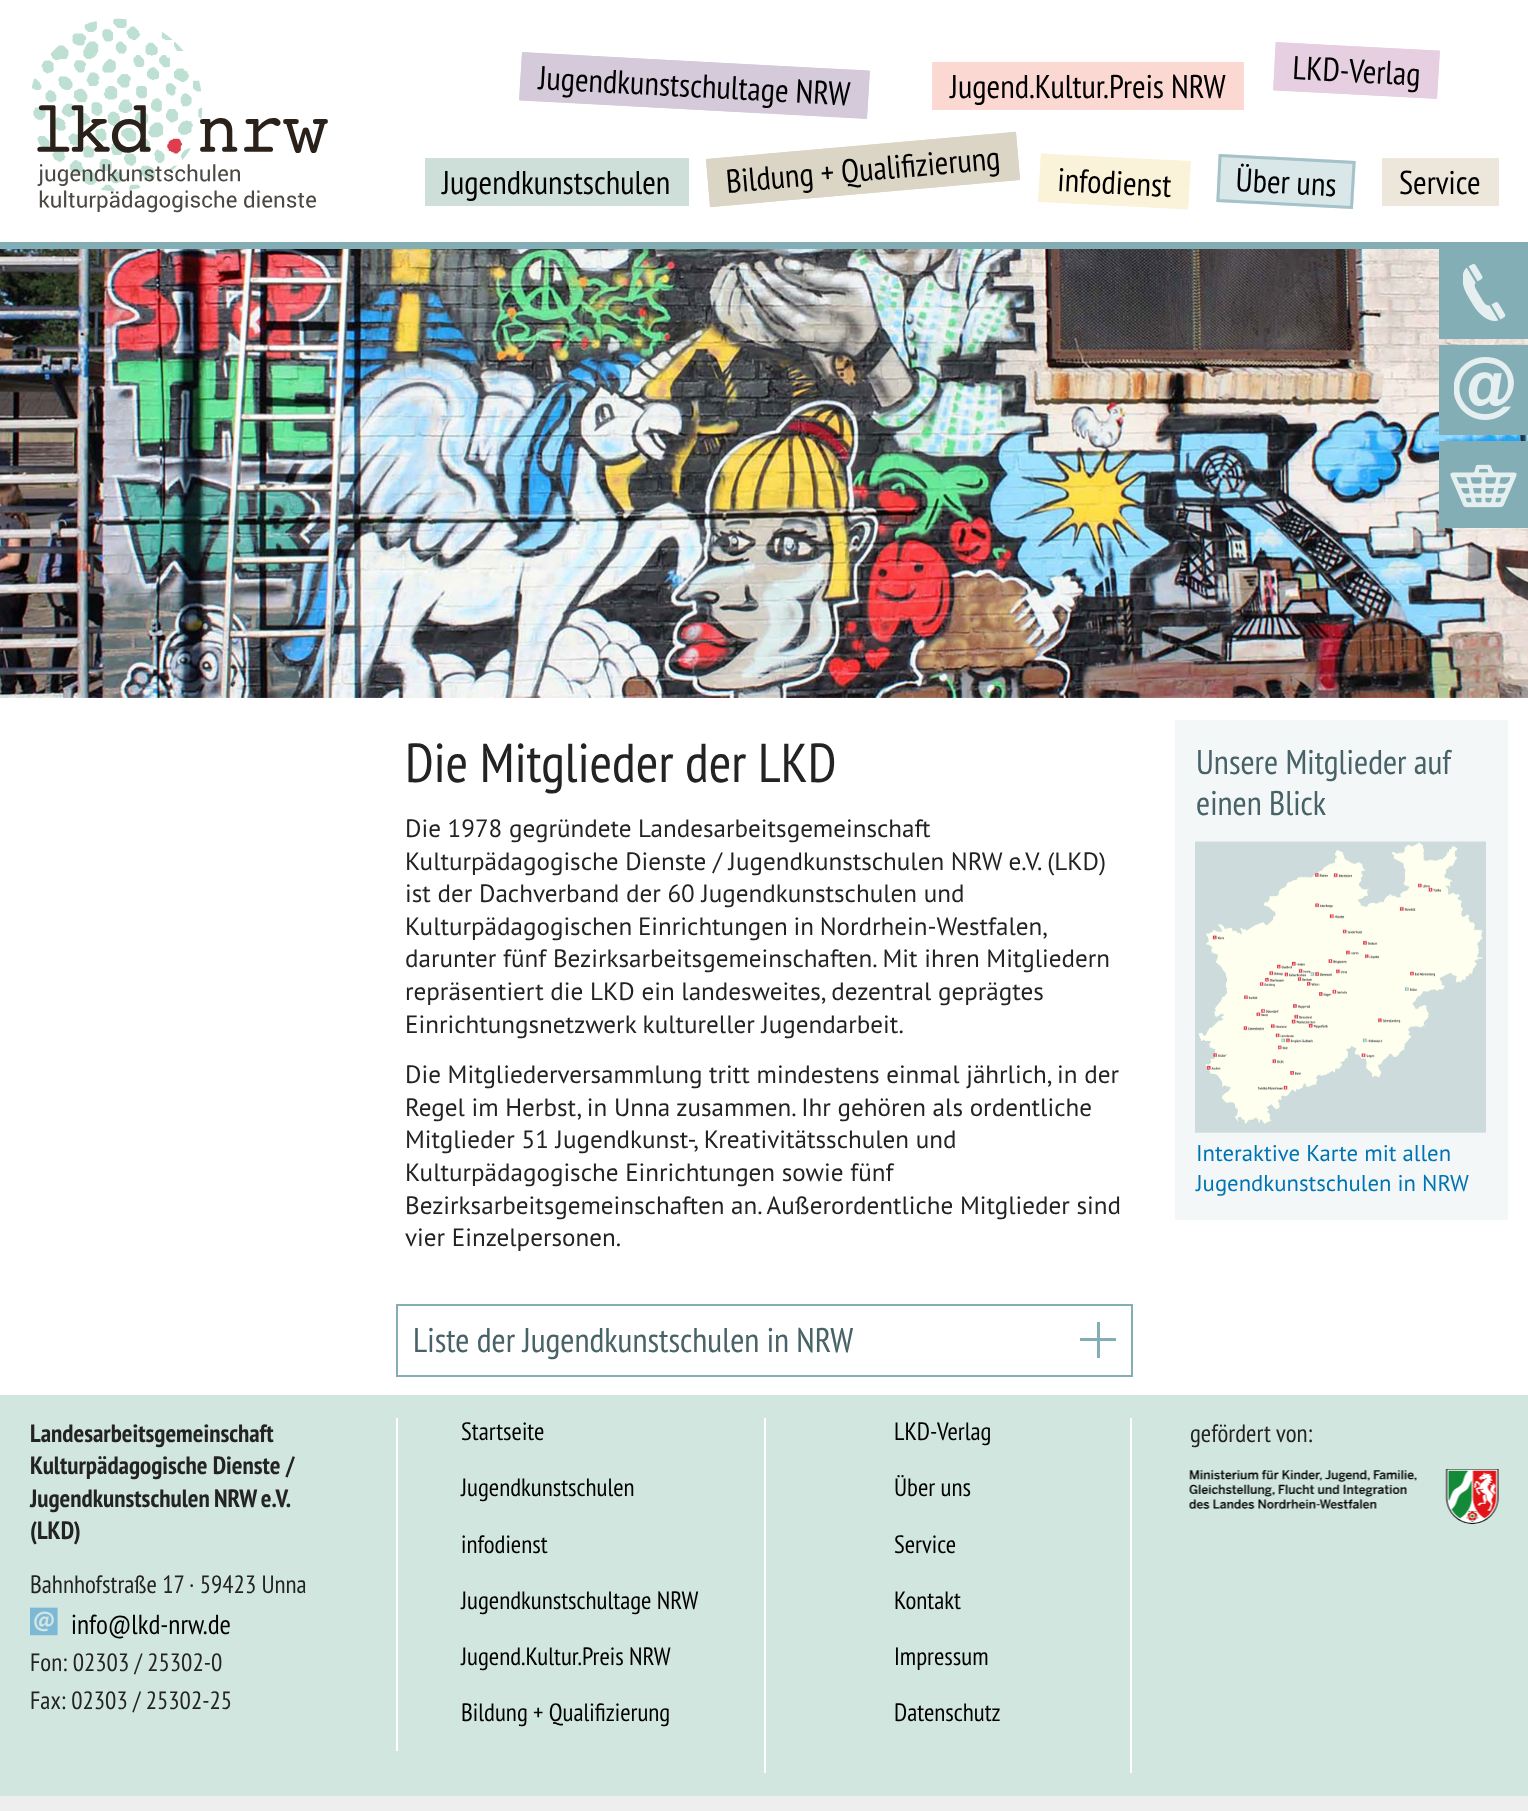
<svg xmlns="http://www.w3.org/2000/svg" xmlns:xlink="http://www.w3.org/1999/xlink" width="1528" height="1811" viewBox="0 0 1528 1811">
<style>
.cls-1{font:33px PT Sans Narrow;fill:#000000}
.cls-2{font:54.75px PT Sans Narrow;fill:#232323}
.cls-3{font:25.1px PT Sans;fill:#232323}
.cls-4{font:34.25px PT Sans Narrow;fill:#486367}
.cls-5{font:22.75px PT Sans;fill:#0073b1}
.cls-6{font:bold 25.1px PT Sans Narrow;fill:#232323}
.cls-7{font:25.1px PT Sans Narrow;fill:#232323}
.cls-8{font:27.5px PT Sans Narrow;fill:#000000}
.cls-9{font:25.1px PT Sans Narrow;fill:#000000}
</style>
<rect width="100%" height="100%" fill="#eeeeee"/>
<rect fill="#ffffff" x="0" y="0" width="1528" height="242"/>
<rect fill="#84aeb6" x="0" y="242" width="1528" height="7"/>
<image xlink:href="image0.png" x="31" y="18" width="297" height="195"/>
<path fill="#d4cada" d="M522 52L870 71L867 119L519 100Z"/>
<path fill="none" stroke="#d4cada" stroke-width="3" d="M523.5 54L868 72L865.5 117L521 99Z"/>
<rect fill="#fcd8d3" x="932" y="62" width="312" height="48"/>
<path fill="#e5cfe1" d="M1276 42L1440 51L1437 99L1273 90Z"/>
<path fill="none" stroke="#e5cfe1" stroke-width="3" d="M1277 44L1438 52L1435.5 97L1275 89Z"/>
<rect fill="#cedfda" x="425" y="158" width="264" height="48"/>
<path fill="#dbd5c6" d="M706 159L1016 132L1020 180L710 207Z"/>
<path fill="none" stroke="#dbd5c6" stroke-width="3" d="M707.5 160.5L1014.5 133.5L1018.5 178.5L711.5 205.5Z"/>
<path fill="#faf2d9" d="M1041 154L1191 161L1188 209L1038 202Z"/>
<path fill="none" stroke="#faf2d9" stroke-width="3" d="M1042.5 155L1189 163L1186.5 208L1040 200Z"/>
<path fill="#dae7e9" d="M1219 154L1356 161L1353 209L1216 202Z"/>
<path fill="none" stroke="#a4c2c9" stroke-width="3" d="M1220 155.5L1354 162.5L1351.5 207.5L1218 200.5Z"/>
<rect fill="#ede6db" x="1382" y="158" width="117" height="48"/>
<rect fill="#ffffff" x="0" y="697" width="1528" height="698"/>
<image xlink:href="image1.png" x="0" y="249" width="1528" height="449"/>
<rect fill="#84aeb6" x="1439" y="249" width="89" height="90"/>
<image xlink:href="image2.png" x="1463" y="264" width="43" height="57"/>
<rect fill="#84aeb6" x="1439" y="345" width="89" height="90"/>
<image xlink:href="image3.png" x="1454" y="357" width="60" height="63"/>
<rect fill="#84aeb6" x="1439" y="441" width="89" height="87"/>
<image xlink:href="image4.png" x="1450" y="464" width="67" height="44"/>
<rect fill="#f3f7f8" x="1175" y="720" width="333" height="500"/>
<image xlink:href="image5.png" x="1195" y="841" width="291" height="292"/>
<rect fill="#84aeb6" x="1080" y="1338" width="36" height="3"/>
<rect fill="#84aeb6" x="1097" y="1322" width="3" height="36"/>
<rect fill="none" stroke="#84aeb6" stroke-width="2" x="397" y="1305" width="735" height="71"/>
<rect fill="#d1e6de" x="0" y="1395" width="1528" height="401"/>
<rect fill="#ffffff" x="396" y="1418" width="2" height="333"/>
<image xlink:href="image6.png" x="30" y="1607" width="28" height="29"/>
<rect fill="#ffffff" x="764" y="1418" width="2" height="355"/>
<rect fill="#ffffff" x="1130" y="1418" width="2" height="355"/>
<image xlink:href="image7.png" x="1189" y="1469" width="310" height="55"/>
<text class="cls-1" x="538" y="89" transform="rotate(3 538 89)">Jugendkunstschultage NRW</text>
<text class="cls-1" x="950" y="98">Jugend.Kultur.Preis NRW</text>
<text class="cls-1" x="1292" y="79" transform="rotate(3 1292 79)">LKD-Verlag</text>
<text class="cls-1" x="442" y="194">Jugendkunstschulen</text>
<text class="cls-1" x="727" y="193" transform="rotate(-5 727 193)">Bildung + Qualifizierung</text>
<text class="cls-1" x="1057" y="191" transform="rotate(3 1057 191)">infodienst</text>
<text class="cls-1" x="1235" y="191" transform="rotate(3 1235 191)">Über uns</text>
<text class="cls-1" x="1399" y="194">Service</text>
<text class="cls-2" x="405" y="782">Die Mitglieder der LKD</text>
<text class="cls-3"><tspan x="405" y="837">Die 1978 gegründete Landesarbeitsgemeinschaft</tspan><tspan x="405" y="870">Kulturpädagogische Dienste / Jugendkunstschulen NRW e.V. (LKD)</tspan><tspan x="405" y="902">ist der Dachverband der 60 Jugendkunstschulen und</tspan><tspan x="405" y="935" word-spacing="-1">Kulturpädagogischen Einrichtungen in Nordrhein-Westfalen,</tspan><tspan x="405" y="967">darunter fünf Bezirksarbeitsgemeinschaften. Mit ihren Mitgliedern</tspan><tspan x="405" y="1000">repräsentiert die LKD ein landesweites, dezentral geprägtes</tspan><tspan x="405" y="1033">Einrichtungsnetzwerk kultureller Jugendarbeit.</tspan><tspan x="405" y="1083">Die Mitgliederversammlung tritt mindestens einmal jährlich, in der</tspan><tspan x="405" y="1116">Regel im Herbst, in Unna zusammen. Ihr gehören als ordentliche</tspan><tspan x="405" y="1148">Mitglieder 51 Jugendkunst-, Kreativitätsschulen und</tspan><tspan x="405" y="1181">Kulturpädagogische Einrichtungen sowie fünf</tspan><tspan x="405" y="1214">Bezirksarbeitsgemeinschaften an. Außerordentliche Mitglieder sind</tspan><tspan x="405" y="1246">vier Einzelpersonen.</tspan></text>
<text class="cls-4"><tspan x="1196" y="774">Unsere Mitglieder auf</tspan><tspan x="1196" y="815">einen Blick</tspan></text>
<text class="cls-5"><tspan x="1196" y="1161">Interaktive Karte mit allen</tspan><tspan x="1196" y="1191">Jugendkunstschulen in NRW</tspan></text>
<text class="cls-4" x="413" y="1352">Liste der Jugendkunstschulen in NRW</text>
<text class="cls-6"><tspan x="30" y="1442">Landesarbeitsgemeinschaft</tspan><tspan x="30" y="1474">Kulturpädagogische Dienste /</tspan><tspan x="30" y="1507" word-spacing="-1">Jugendkunstschulen NRW e.V.</tspan><tspan x="30" y="1539">(LKD)</tspan></text>
<text class="cls-7" x="30" y="1593">Bahnhofstraße 17 · 59423 Unna</text>
<text class="cls-8" x="71" y="1634">info@lkd-nrw.de</text>
<text class="cls-7"><tspan x="30" y="1671">Fon: 02303 / 25302-0</tspan><tspan x="30" y="1709">Fax: 02303 / 25302-25</tspan></text>
<text class="cls-9" x="461" y="1440">Startseite</text>
<text class="cls-9" x="461" y="1496">Jugendkunstschulen</text>
<text class="cls-9" x="461" y="1553">infodienst</text>
<text class="cls-9" x="461" y="1609">Jugendkunstschultage NRW</text>
<text class="cls-9" x="461" y="1665">Jugend.Kultur.Preis NRW</text>
<text class="cls-9" x="461" y="1721">Bildung + Qualifizierung</text>
<text class="cls-9" x="894" y="1440">LKD-Verlag</text>
<text class="cls-9" x="894" y="1496">Über uns</text>
<text class="cls-9" x="894" y="1553">Service</text>
<text class="cls-9" x="894" y="1609">Kontakt</text>
<text class="cls-9" x="894" y="1665">Impressum</text>
<text class="cls-9" x="894" y="1721">Datenschutz</text>
<text class="cls-7" x="1190" y="1442">gefördert von:</text>
</svg>
